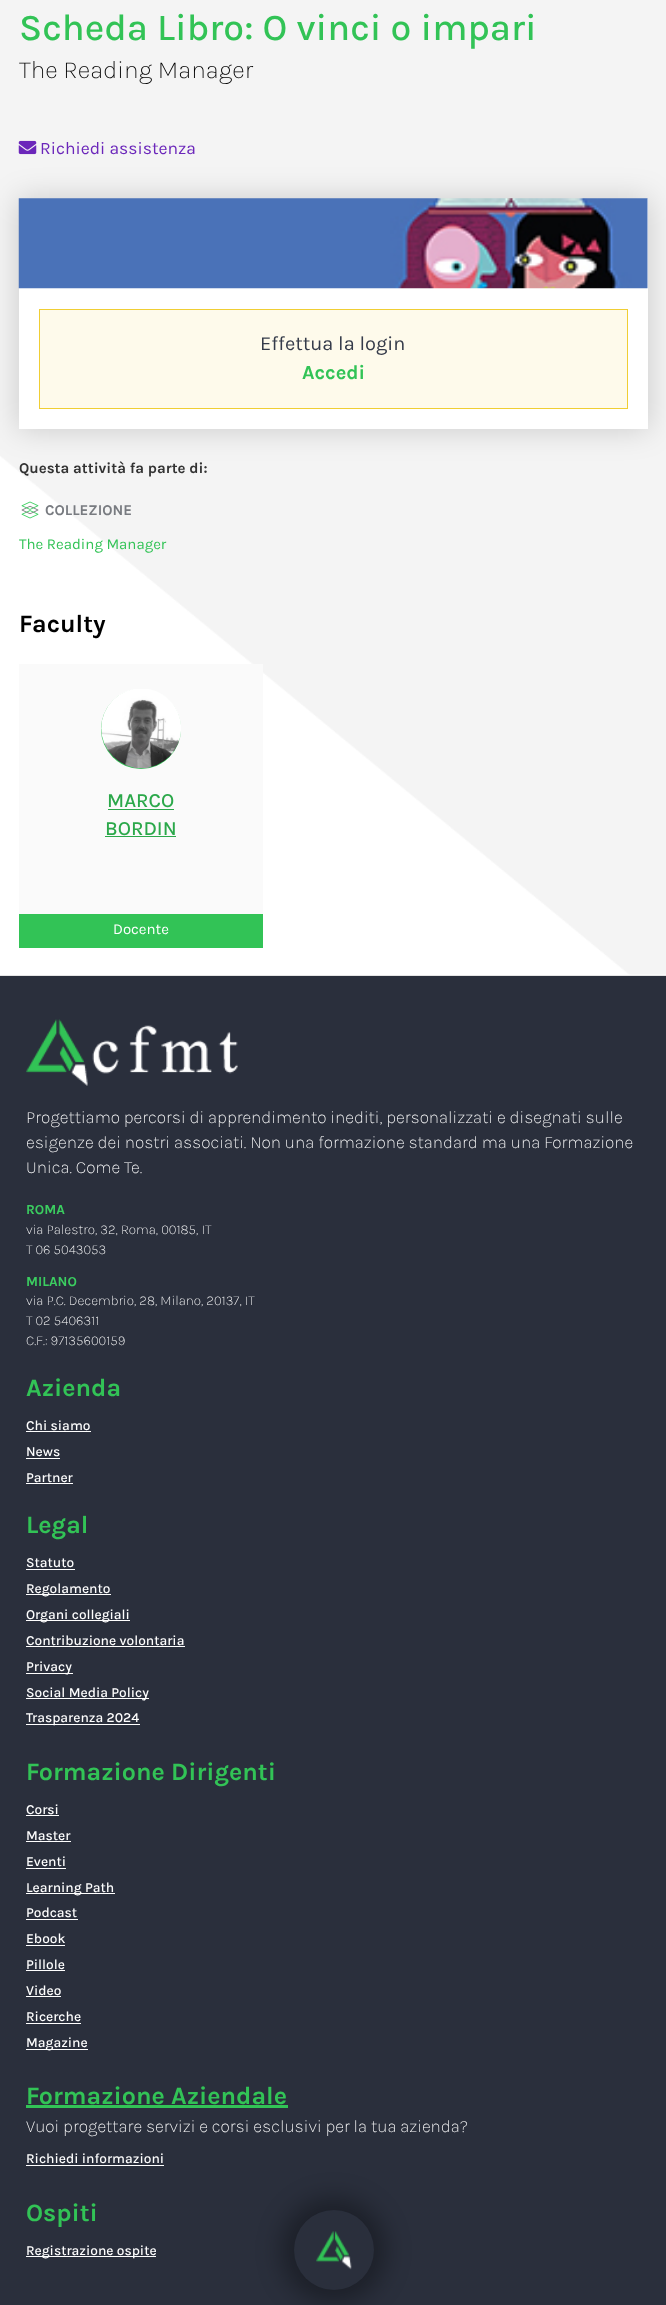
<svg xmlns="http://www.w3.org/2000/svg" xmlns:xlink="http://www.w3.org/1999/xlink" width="666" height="2305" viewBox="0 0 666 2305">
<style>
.cls-1{font:500 37.5px Karla;fill:#32c356}
.cls-2{font:200 25px Karla;fill:#000000}
.cls-3{font:17.5px Karla;fill:#6b26ba}
.cls-4{font:20px Karla;fill:#353b4a}
.cls-5{font:bold 20px Karla;fill:#32c356}
.cls-6{font:bold 15px Karla;fill:#333333}
.cls-7{font:bold 15px Karla;fill:#787b80}
.cls-8{font:15px Karla;fill:#32c356}
.cls-9{font:bold 25px Karla;fill:#000000}
.cls-10{font:500 20px Karla;fill:#2ba84a}
.cls-11{font:15px Karla;fill:#ffffff}
.cls-12{font:200 17.5px Karla;fill:#ffffff}
.cls-13{font:bold 13.75px Karla;fill:#3bce60}
.cls-14{font:200 13.75px Karla;fill:#ffffff}
.cls-15{font:bold 25px Karla;fill:#32c356}
.cls-16{font:500 13.75px Karla;fill:#ffffff}
</style>
<rect width="100%" height="100%" fill="#ffffff"/>
<image xlink:href="image0.png" x="0" y="0" width="666" height="975"/>
<image xlink:href="image1.png" x="18" y="140" width="19" height="15"/>
<rect fill="#000000" fill-opacity="0.16" filter="blur(15px)" x="18" y="198" width="631" height="232"/>
<rect fill="#ffffff" x="19" y="199" width="629" height="230"/>
<image xlink:href="image2.png" x="18" y="198" width="630" height="91"/>
<rect fill="#fefaeb" stroke="#f0ce34" x="39.5" y="309.5" width="588" height="99"/>
<image xlink:href="image3.png" x="21" y="501" width="18" height="18"/>
<rect fill="#fafafa" x="19" y="664" width="244" height="250"/>
<circle fill="#32c356" cx="141" cy="729" r="40"/>
<image xlink:href="image4.png" x="101" y="689" width="80" height="80"/>
<rect fill="#2ba84a" x="108" y="809" width="66" height="1"/>
<rect fill="#2ba84a" x="105" y="836" width="71" height="1"/>
<rect fill="#32c356" x="19" y="914" width="244" height="34"/>
<rect fill="#2a2f3c" x="0" y="976" width="666" height="1329"/>
<rect fill="#e5e5e5" x="0" y="975" width="666" height="1"/>
<image xlink:href="image5.png" x="26" y="1019" width="212" height="67"/>
<rect fill="#ffffff" x="26" y="1431" width="65" height="1"/>
<rect fill="#ffffff" x="26" y="1458" width="34" height="1"/>
<rect fill="#ffffff" x="26" y="1483" width="47" height="1"/>
<rect fill="#ffffff" x="26" y="1569" width="49" height="1"/>
<rect fill="#ffffff" x="26" y="1594" width="85" height="1"/>
<rect fill="#ffffff" x="26" y="1620" width="104" height="1"/>
<rect fill="#ffffff" x="26" y="1646" width="159" height="1"/>
<rect fill="#ffffff" x="26" y="1673" width="47" height="1"/>
<rect fill="#ffffff" x="26" y="1698" width="123" height="1"/>
<rect fill="#ffffff" x="26" y="1724" width="114" height="1"/>
<rect fill="#ffffff" x="26" y="1815" width="33" height="1"/>
<rect fill="#ffffff" x="26" y="1841" width="45" height="1"/>
<rect fill="#ffffff" x="26" y="1868" width="40" height="1"/>
<rect fill="#ffffff" x="26" y="1893" width="89" height="1"/>
<rect fill="#ffffff" x="26" y="1919" width="52" height="1"/>
<rect fill="#ffffff" x="26" y="1945" width="39" height="1"/>
<rect fill="#ffffff" x="26" y="1970" width="39" height="1"/>
<rect fill="#ffffff" x="26" y="1996" width="35" height="1"/>
<rect fill="#ffffff" x="26" y="2023" width="55" height="1"/>
<rect fill="#ffffff" x="26" y="2049" width="62" height="1"/>
<rect fill="#32c356" x="26" y="2105" width="262" height="3"/>
<rect fill="#ffffff" x="26" y="2165" width="138" height="1"/>
<rect fill="#ffffff" x="26" y="2256" width="130" height="1"/>
<rect fill="#000000" fill-opacity="0.33" filter="blur(12.5px)" x="281" y="2198" width="105" height="105" rx="52.5"/>
<circle fill="#2a2f3c" cx="334" cy="2250" r="40"/>
<image xlink:href="image6.png" x="316" y="2231" width="36" height="39"/>
<text class="cls-1" x="19" y="40">Scheda Libro: O vinci o impari</text>
<text class="cls-2" x="19" y="78">The Reading Manager</text>
<text class="cls-3" x="40" y="154">Richiedi assistenza</text>
<text class="cls-4" x="260" y="350">Effettua la login</text>
<text class="cls-5" x="302" y="379">Accedi</text>
<text class="cls-6" x="19" y="473">Questa attività fa parte di:</text>
<text class="cls-7" x="45" y="515">COLLEZIONE</text>
<text class="cls-8" x="19" y="549">The Reading Manager</text>
<text class="cls-9" x="19" y="632">Faculty</text>
<text class="cls-10" x="107" y="807">MARCO</text>
<text class="cls-10" x="105" y="835">BORDIN</text>
<text class="cls-11" x="113" y="934">Docente</text>
<text class="cls-12"><tspan x="26" y="1123">Progettiamo percorsi di apprendimento inediti, personalizzati e disegnati sulle</tspan><tspan x="26" y="1148">esigenze dei nostri associati. Non una formazione standard ma una Formazione</tspan><tspan x="26" y="1173">Unica. Come Te.</tspan></text>
<text class="cls-13" x="26" y="1214">ROMA</text>
<text class="cls-14"><tspan x="26" y="1234">via Palestro, 32, Roma, 00185, IT</tspan><tspan x="26" y="1254">T 06 5043053</tspan></text>
<text class="cls-13" x="26" y="1286">MILANO</text>
<text class="cls-14"><tspan x="26" y="1305">via P.C. Decembrio, 28, Milano, 20137, IT</tspan><tspan x="26" y="1325">T 02 5406311</tspan><tspan x="26" y="1345">C.F.: 97135600159</tspan></text>
<text class="cls-15" x="26" y="1396">Azienda</text>
<text class="cls-16"><tspan x="26" y="1430">Chi siamo</tspan><tspan x="26" y="1456">News</tspan><tspan x="26" y="1482">Partner</tspan></text>
<text class="cls-15" x="26" y="1533">Legal</text>
<text class="cls-16"><tspan x="26" y="1567">Statuto</tspan><tspan x="26" y="1593">Regolamento</tspan><tspan x="26" y="1619">Organi collegiali</tspan><tspan x="26" y="1645">Contribuzione volontaria</tspan><tspan x="26" y="1671">Privacy</tspan><tspan x="26" y="1697">Social Media Policy</tspan><tspan x="26" y="1722">Trasparenza 2024</tspan></text>
<text class="cls-15" x="26" y="1780">Formazione Dirigenti</text>
<text class="cls-16"><tspan x="26" y="1814">Corsi</tspan><tspan x="26" y="1840">Master</tspan><tspan x="26" y="1866">Eventi</tspan><tspan x="26" y="1892">Learning Path</tspan><tspan x="26" y="1917">Podcast</tspan><tspan x="26" y="1943">Ebook</tspan><tspan x="26" y="1969">Pillole</tspan><tspan x="26" y="1995">Video</tspan><tspan x="26" y="2021">Ricerche</tspan><tspan x="26" y="2047">Magazine</tspan></text>
<text class="cls-15" x="26" y="2104">Formazione Aziendale</text>
<text class="cls-12" x="26" y="2132">Vuoi progettare servizi e corsi esclusivi per la tua azienda?</text>
<text class="cls-16" x="26" y="2163">Richiedi informazioni</text>
<text class="cls-15" x="26" y="2221">Ospiti</text>
<text class="cls-16" x="26" y="2255">Registrazione ospite</text>
</svg>
